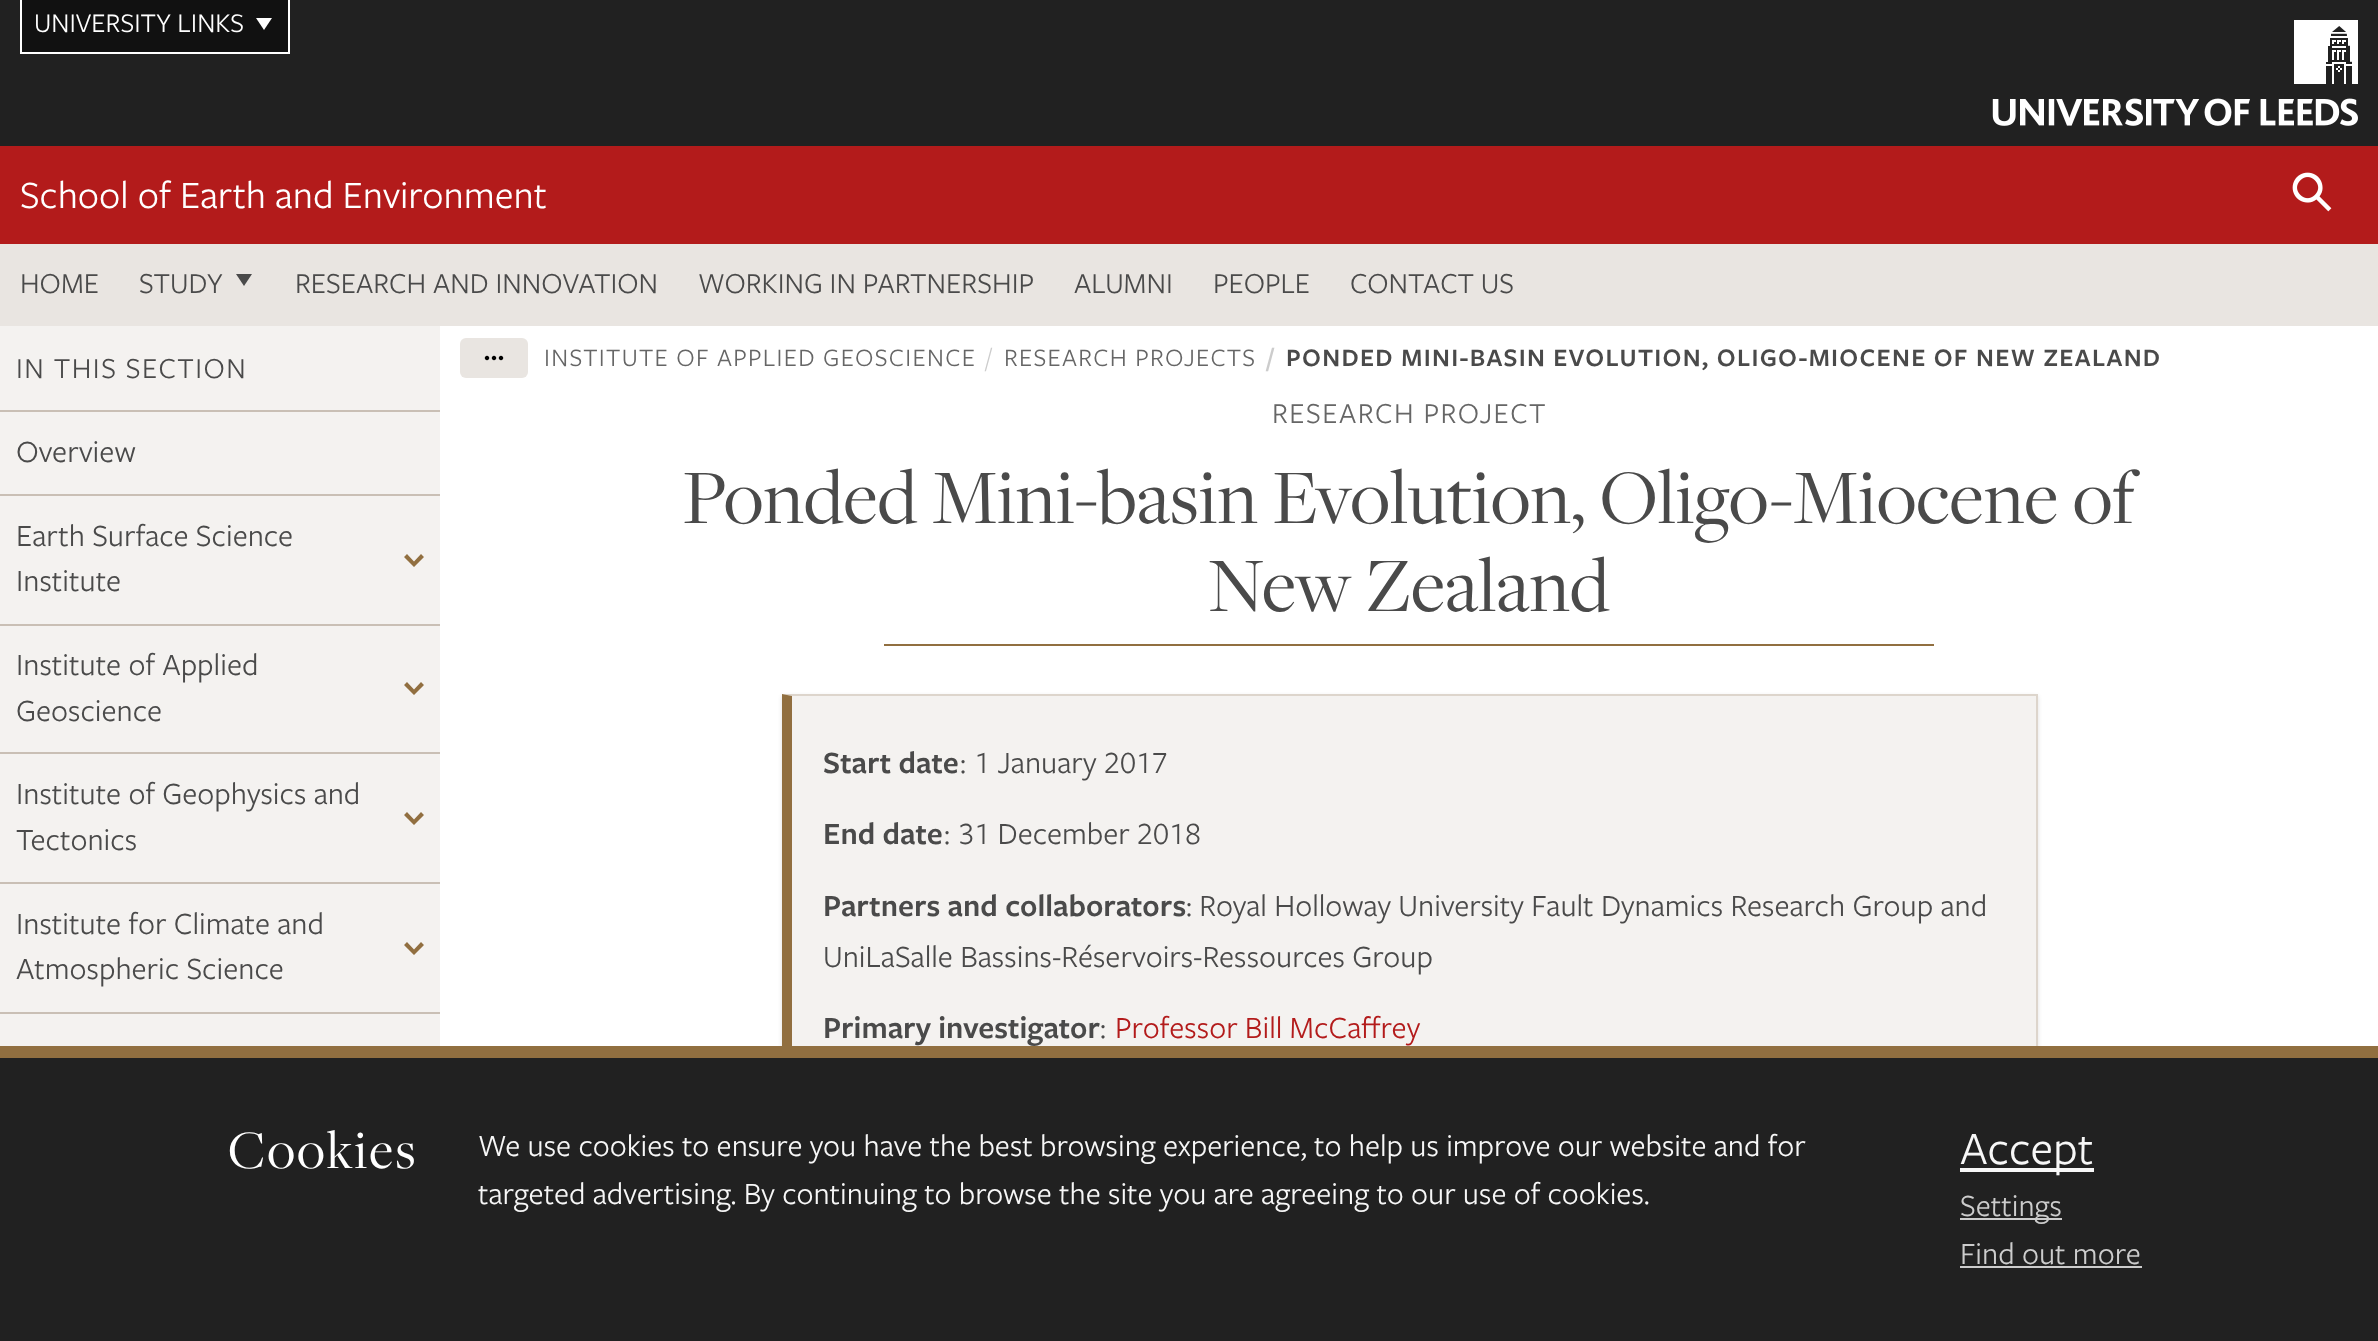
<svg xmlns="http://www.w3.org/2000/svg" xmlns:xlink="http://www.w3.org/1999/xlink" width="2378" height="1341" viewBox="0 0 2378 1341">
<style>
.cls-1{font:28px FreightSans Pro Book;fill:#ffffff}
.cls-2{font:40px FreightSans Pro Book;fill:#ffffff}
.cls-3{font:30px FreightSans Pro Book;fill:#4a4a4a}
.cls-4{font:30px FreightSans Pro Book;letter-spacing:1.5px;fill:#4a4a4a}
.cls-5{font:32px FreightSans Pro Book;fill:#4a4a4a}
.cls-6{font:26px FreightSans Pro Book;letter-spacing:1.3px;fill:#666666}
.cls-7{font:26px FreightSans Pro Book;letter-spacing:1.3px;fill:#cccccc}
.cls-8{font:600 26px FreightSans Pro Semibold;letter-spacing:1.3px;fill:#cccccc}
.cls-9{font:600 26px FreightSans Pro Semibold;letter-spacing:1.3px;fill:#4a4a4a}
.cls-10{font:30px FreightSans Pro Book;letter-spacing:1.5px;fill:#666666}
.cls-11{font:80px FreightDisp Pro;fill:#4a4a4a}
.cls-12{font:600 32px FreightSans Pro Semibold;fill:#4a4a4a}
.cls-13{font:32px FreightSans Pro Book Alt;fill:#4a4a4a}
.cls-14{font:32px FreightSans Pro Book;fill:#b31b1b}
.cls-15{font:56px FreightDisp Pro;letter-spacing:2px;fill:#ffffff}
.cls-16{font:32px FreightSans Pro Book;fill:#f7f7f7}
.cls-17{font:48px FreightSans Pro Book;fill:#f7f7f7}
.cls-18{font:32px FreightSans Pro Book;fill:#cccccc}
</style>
<rect width="100%" height="100%" fill="#ffffff"/>
<rect fill="#212121" x="0" y="0" width="2378" height="146"/>
<image xlink:href="image0.png" x="1992" y="20" width="366" height="106"/>
<rect fill="#111111" x="22" y="0" width="266" height="52"/>
<rect fill="#ffffff" x="288" y="0" width="2" height="54"/>
<rect fill="#ffffff" x="20" y="52" width="270" height="2"/>
<rect fill="#ffffff" x="20" y="0" width="2" height="54"/>
<path fill="#ffffff" d="M272 18L264 30L256 18Z"/>
<rect fill="#b31b1b" x="0" y="146" width="2378" height="98"/>
<image xlink:href="image1.png" x="2292" y="172" width="40" height="40"/>
<rect fill="#e9e5e1" x="0" y="244" width="2378" height="82"/>
<path fill="#4a4a4a" d="M252 274L244 286L236 274Z"/>
<rect fill="#f4f2f0" x="0" y="326" width="440" height="720"/>
<rect fill="#c9bfb5" x="0" y="410" width="440" height="2"/>
<rect fill="#c9bfb5" x="0" y="494" width="440" height="2"/>
<rect fill="#c9bfb5" x="0" y="624" width="440" height="2"/>
<path fill="#916f40" d="M414 567L404 557L407 554L414 561.5L421 554L424 557Z"/>
<rect fill="#c9bfb5" x="0" y="752" width="440" height="2"/>
<path fill="#916f40" d="M414 695L404 685L407 682L414 689.5L421 682L424 685Z"/>
<rect fill="#c9bfb5" x="0" y="882" width="440" height="2"/>
<path fill="#916f40" d="M414 825L404 815L407 812L414 819.5L421 812L424 815Z"/>
<rect fill="#c9bfb5" x="0" y="1012" width="440" height="2"/>
<path fill="#916f40" d="M414 955L404 945L407 942L414 949.5L421 942L424 945Z"/>
<rect fill="#e9e5e1" x="460" y="338" width="68" height="40" rx="6"/>
<image xlink:href="image2.png" x="484" y="355" width="20" height="6"/>
<rect fill="#916f40" x="884" y="644" width="1050" height="2"/>
<rect fill="#000000" fill-opacity="0.12" filter="blur(2px)" x="782" y="696" width="1256" height="474"/>
<rect fill="#f4f2f0" x="792" y="696" width="1244" height="350"/>
<path fill="#ddd5cc" d="M782 694H2038L2036 696H792Z"/>
<rect fill="#ddd5cc" x="2036" y="694" width="2" height="352"/>
<path fill="#916f40" d="M782 1168V694L792 696V1166Z"/>
<rect fill="#212121" x="0" y="1058" width="2378" height="283"/>
<rect fill="#916f40" x="0" y="1046" width="2378" height="12"/>
<rect fill="#f7f7f7" x="1960" y="1168" width="134" height="4"/>
<rect fill="#cccccc" x="1960" y="1218" width="102" height="2"/>
<rect fill="#cccccc" x="1960" y="1266" width="182" height="2"/>
<text class="cls-1" x="34" y="32">UNIVERSITY LINKS</text>
<text class="cls-2" x="20" y="208">School of Earth and Environment</text>
<text class="cls-3" x="20" y="293">HOME</text>
<text class="cls-3" x="139" y="293">STUDY</text>
<text class="cls-3" x="295" y="293">RESEARCH AND INNOVATION</text>
<text class="cls-3" x="698" y="293">WORKING IN PARTNERSHIP</text>
<text class="cls-3" x="1074" y="293">ALUMNI</text>
<text class="cls-3" x="1213" y="293">PEOPLE</text>
<text class="cls-3" x="1350" y="293">CONTACT US</text>
<text class="cls-4" x="16" y="378">IN THIS SECTION</text>
<text class="cls-5" x="16" y="462">Overview</text>
<text class="cls-5"><tspan x="16" y="546">Earth Surface Science</tspan><tspan x="16" y="591">Institute</tspan></text>
<text class="cls-5"><tspan x="16" y="675">Institute of Applied</tspan><tspan x="16" y="721">Geoscience</tspan></text>
<text class="cls-5"><tspan x="16" y="804">Institute of Geophysics and</tspan><tspan x="16" y="850">Tectonics</tspan></text>
<text class="cls-5"><tspan x="16" y="934">Institute for Climate and</tspan><tspan x="16" y="979">Atmospheric Science</tspan></text>
<text class="cls-6" x="544" y="366">INSTITUTE OF APPLIED GEOSCIENCE</text>
<text class="cls-7" x="986" y="366">/</text>
<text class="cls-6" x="1004" y="366">RESEARCH PROJECTS</text>
<text class="cls-8" x="1267" y="366">/</text>
<text class="cls-9" x="1286" y="366">PONDED MINI-BASIN EVOLUTION, OLIGO-MIOCENE OF NEW ZEALAND</text>
<text class="cls-10" x="1272" y="423">RESEARCH PROJECT</text>
<text class="cls-11" x="683" y="523">Ponded Mini-basin Evolution, Oligo-Miocene of</text>
<text class="cls-11" x="1208" y="611">New Zealand</text>
<text class="cls-12" x="823" y="773">Start date</text>
<text class="cls-13" x="959" y="773">: 1 January 2017</text>
<text class="cls-12" x="823" y="844">End date</text>
<text class="cls-13" x="943" y="844">: 31 December 2018</text>
<text class="cls-12" x="823" y="916">Partners and collaborators</text>
<text class="cls-5" x="1186" y="916">: Royal Holloway University Fault Dynamics Research Group and</text>
<text class="cls-5" x="823" y="967">UniLaSalle Bassins-Réservoirs-Ressources Group</text>
<text class="cls-12" x="823" y="1038">Primary investigator</text>
<text class="cls-5" x="1100" y="1038">:</text>
<text class="cls-14" x="1115" y="1038">Professor Bill McCaffrey</text>
<text class="cls-15" x="228" y="1168">Cookies</text>
<text class="cls-16"><tspan x="478" y="1156">We use cookies to ensure you have the best browsing experience, to help us improve our website and for</tspan><tspan x="478" y="1204">targeted advertising. By continuing to browse the site you are agreeing to our use of cookies.</tspan></text>
<text class="cls-17" x="1960" y="1164">Accept</text>
<text class="cls-18"><tspan x="1960" y="1216">Settings</tspan><tspan x="1960" y="1264">Find out more</tspan></text>
</svg>
